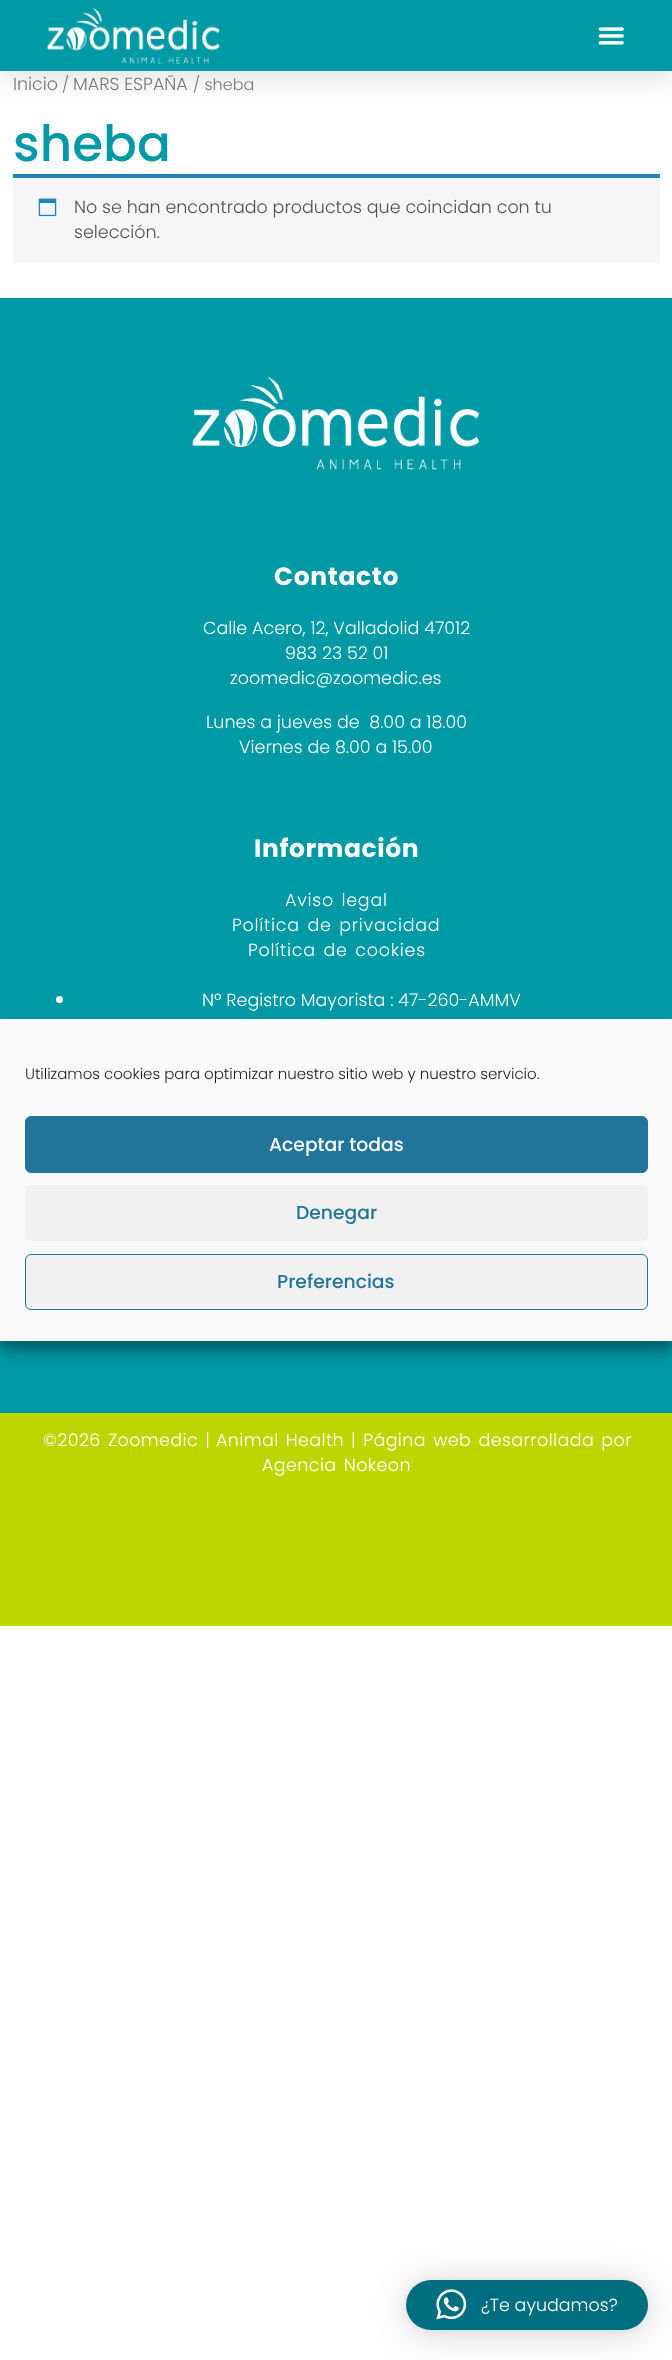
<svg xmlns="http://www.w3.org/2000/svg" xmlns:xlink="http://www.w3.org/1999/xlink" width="672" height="2360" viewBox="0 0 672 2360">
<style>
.cls-1{font:300 17.5px Poppins;fill:#767676}
.cls-2{font:300 16px Poppins;fill:#767676}
.cls-3{font:500 50px Poppins;fill:#009aa6}
.cls-4{font:300 17.5px Poppins;fill:#515151}
.cls-5{font:bold 25px Poppins;letter-spacing:0.6px;fill:#ffffff}
.cls-6{font:300 17.5px Poppins;fill:#ffffff}
.cls-7{font:300 17.5px Poppins;letter-spacing:0.75px;fill:#ffffff}
.cls-8{font:300 17.5px Poppins;letter-spacing:0.4px;fill:#ffffff}
.cls-9{font:300 15px Poppins;fill:#191e23}
.cls-10{font:500 18.75px Poppins;fill:#ffffff}
.cls-11{font:500 18.75px Poppins;fill:#21759b}
</style>
<rect width="100%" height="100%" fill="#ffffff"/>
<rect fill="#000000" fill-opacity="0.12" filter="blur(15px)" x="0" y="6" width="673" height="72"/>
<rect fill="#009aa6" x="0" y="0" width="672" height="71"/>
<image xlink:href="image0.png" x="47" y="7" width="173" height="57"/>
<image xlink:href="image1.png" x="598" y="27" width="26" height="18"/>
<rect fill="#f6f5f8" x="13" y="178" width="647" height="85"/>
<rect fill="#1e85be" x="13" y="174" width="647" height="4"/>
<image xlink:href="image2.png" x="38" y="198" width="19" height="19"/>
<rect fill="#009aa6" x="0" y="298" width="672" height="1115"/>
<image xlink:href="image3.png" x="192" y="376" width="288" height="94"/>
<circle fill="#ffffff" cx="59.5" cy="999.5" r="3.5"/>
<rect fill="#bed600" x="0" y="1413" width="672" height="213"/>
<rect fill="#000000" fill-opacity="0.23" filter="blur(4px)" x="0" y="1026" width="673" height="323"/>
<rect fill="#000000" fill-opacity="0.19" filter="blur(12.5px)" x="0" y="1031" width="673" height="323"/>
<rect fill="#f9f9f9" x="0" y="1019" width="672" height="322"/>
<rect fill="#21759b" stroke="#21759b" x="25.5" y="1116.5" width="622" height="56" rx="5.5"/>
<rect fill="#f1f1f1" x="25" y="1185" width="623" height="56" rx="6"/>
<rect fill="#f1f1f1" stroke="#21759b" x="25.5" y="1254.5" width="622" height="55" rx="5.5"/>
<rect fill="#000000" fill-opacity="0.16" filter="blur(20px)" x="406" y="2283" width="242" height="50" rx="25"/>
<rect fill="#000000" fill-opacity="0.06" filter="blur(4px)" x="406" y="2281" width="242" height="50" rx="25"/>
<rect fill="#006e80" x="406" y="2280" width="242" height="50" rx="25"/>
<image xlink:href="image4.png" x="436" y="2289" width="31" height="31"/>
<text class="cls-1" x="13" y="90">Inicio</text>
<text class="cls-2" x="62" y="90">/</text>
<text class="cls-1" x="73" y="90">MARS ESPAÑA</text>
<text class="cls-2" x="193" y="90">/ sheba</text>
<text class="cls-3" x="13" y="161">sheba</text>
<text class="cls-4"><tspan x="74" y="213">No se han encontrado productos que coincidan con tu</tspan><tspan x="74" y="238">selección.</tspan></text>
<text class="cls-5" x="274" y="585">Contacto</text>
<text class="cls-6" x="203" y="634">Calle Acero, 12, Valladolid 47012</text>
<text class="cls-6" x="285" y="659">983 23 52 01</text>
<text class="cls-6" x="230" y="684">zoomedic@zoomedic.es</text>
<text class="cls-6" xml:space="preserve" x="206" y="728">Lunes a jueves de  8.00 a 18.00</text>
<text class="cls-6" x="239" y="753">Viernes de 8.00 a 15.00</text>
<text class="cls-5" x="254" y="857">Información</text>
<text class="cls-7" x="285" y="906" word-spacing="2">Aviso legal</text>
<text class="cls-7" x="232" y="931" word-spacing="2">Política de privacidad</text>
<text class="cls-7" x="248" y="956" word-spacing="2">Política de cookies</text>
<text class="cls-6" x="202" y="1006">Nº Registro Mayorista : 47-260-AMMV</text>
<text class="cls-8" x="43" y="1446" word-spacing="2">©2026 Zoomedic |</text>
<text class="cls-8" x="216" y="1446" word-spacing="2">Animal Health</text>
<text class="cls-8" x="351" y="1446" word-spacing="2">| Página web desarrollada por</text>
<text class="cls-8" x="262" y="1471" word-spacing="2">Agencia Nokeon</text>
<text class="cls-9" x="25" y="1079">Utilizamos cookies para optimizar nuestro sitio web y nuestro servicio.</text>
<text class="cls-10" x="269" y="1151">Aceptar todas</text>
<text class="cls-11" x="296" y="1219">Denegar</text>
<text class="cls-11" x="277" y="1288">Preferencias</text>
<text class="cls-6" x="481" y="2311">¿Te ayudamos?</text>
</svg>
